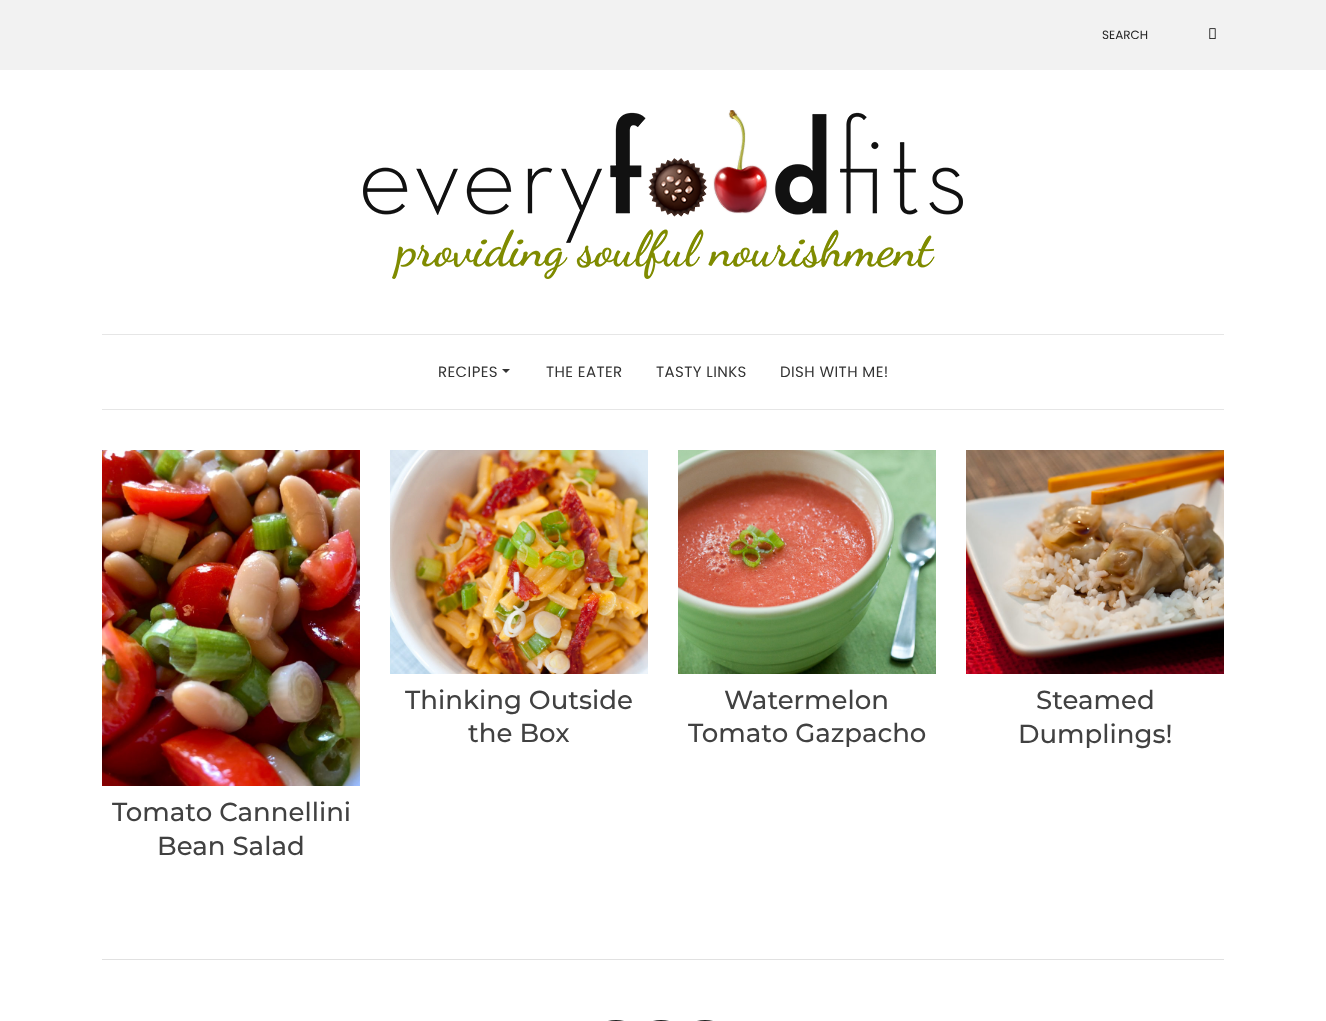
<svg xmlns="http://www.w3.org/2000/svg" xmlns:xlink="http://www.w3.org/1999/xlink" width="1326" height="1021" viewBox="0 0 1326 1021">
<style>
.cls-1{font:12px Poppins;fill:#242424}
.cls-2{font:15px Poppins;letter-spacing:0.4px;fill:#333333}
.cls-3{font:500 26px Montserrat;fill:#414141}
</style>
<rect width="100%" height="100%" fill="#ffffff"/>
<rect fill="#f2f2f2" x="0" y="0" width="1326" height="70"/>
<image xlink:href="image0.png" x="1209" y="28" width="7" height="11"/>
<image xlink:href="image1.png" x="363" y="110" width="600" height="169"/>
<rect fill="#e6e6e6" x="102" y="334" width="1122" height="1"/>
<rect fill="#e6e6e6" x="102" y="409" width="1122" height="1"/>
<path fill="#333333" d="M502 369H510L506 373Z"/>
<image xlink:href="image2.png" x="390" y="450" width="258" height="224"/>
<image xlink:href="image3.png" x="678" y="450" width="258" height="224"/>
<image xlink:href="image4.png" x="966" y="450" width="258" height="224"/>
<image xlink:href="image5.png" x="102" y="450" width="258" height="336"/>
<rect fill="#e1e1e1" x="102" y="959" width="1122" height="1"/>
<rect fill="#242424" x="598" y="1020" width="36" height="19" rx="18"/>
<rect fill="#242424" x="643" y="1020" width="36" height="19" rx="18"/>
<rect fill="#242424" x="687" y="1020" width="36" height="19" rx="18"/>
<text class="cls-1" x="1102" y="39">SEARCH</text>
<text class="cls-2" x="438" y="377">RECIPES</text>
<text class="cls-2" x="546" y="377">THE EATER</text>
<text class="cls-2" x="656" y="377">TASTY LINKS</text>
<text class="cls-2" x="780" y="377">DISH WITH ME!</text>
<text class="cls-3" x="405" y="709">Thinking Outside</text>
<text class="cls-3" x="468" y="742">the Box</text>
<text class="cls-3" x="724" y="709">Watermelon</text>
<text class="cls-3" x="688" y="742">Tomato Gazpacho</text>
<text class="cls-3" x="1036" y="709">Steamed</text>
<text class="cls-3" x="1018" y="743">Dumplings!</text>
<text class="cls-3" x="112" y="821">Tomato Cannellini</text>
<text class="cls-3" x="157" y="855">Bean Salad</text>
</svg>
